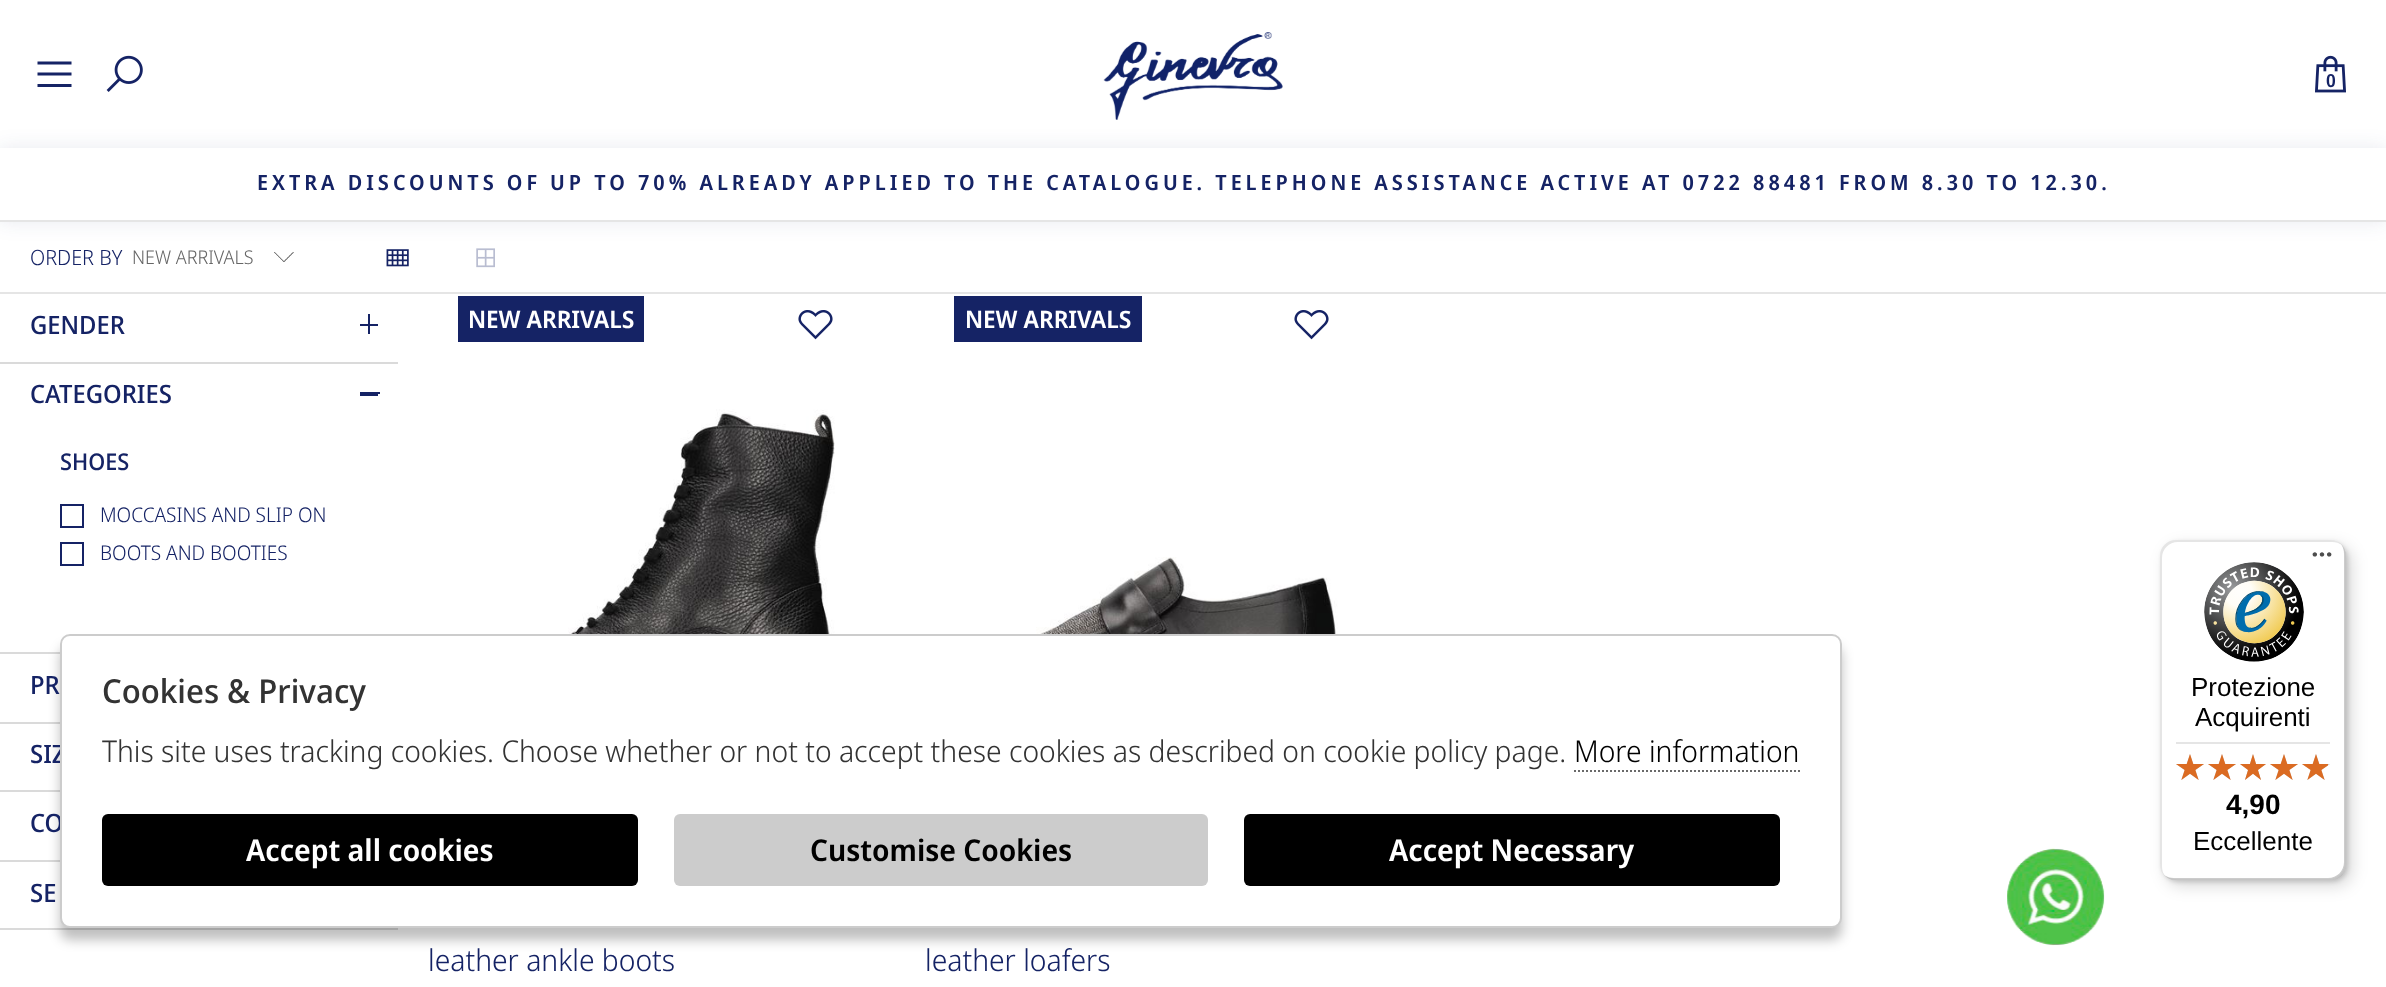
<svg xmlns="http://www.w3.org/2000/svg" xmlns:xlink="http://www.w3.org/1999/xlink" width="2386" height="987" viewBox="0 0 2386 987">
<style>
.cls-1{font:600 18px Noto Sans Display;fill:#152365}
.cls-2{font:600 21px Noto Sans Display;letter-spacing:4px;fill:#152365}
.cls-3{font:300 21px Noto Sans Display;fill:#152365}
.cls-4{font:300 19px Noto Sans Display;fill:#666666}
.cls-5{font:500 25.25px Noto Sans Display;fill:#152365}
.cls-6{font:500 23px Noto Sans Display;fill:#152365}
.cls-7{font:300 20.2px Noto Sans Display;fill:#152365}
.cls-8{font:600 24px Noto Sans Display;fill:#ffffff}
.cls-9{font:300 30px Noto Sans Display;fill:#152365}
.cls-10{font:500 33px Noto Sans Display;fill:#333333}
.cls-11{font:300 30px Noto Sans Display;fill:#333333}
.cls-12{font:300 30px Noto Sans Display;fill:#000000}
.cls-13{font:600 30px Noto Sans Display;fill:#ffffff}
.cls-14{font:600 30px Noto Sans Display;fill:#000000}
.cls-15{font:26px Liberation Sans;fill:#000000}
.cls-16{font:bold 28px Liberation Sans;fill:#000000}
</style>
<defs>
<clipPath id="clip1"><path d="M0 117H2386V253H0ZM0 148H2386V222H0Z" clip-rule="evenodd"/></clipPath>
</defs>
<rect width="100%" height="100%" fill="#ffffff"/>
<path fill="#152365" d="M37.5 61.5V64.5H71.5V61.5ZM37.5 72.5V75.5H71.5V72.5ZM37.5 84V87H71.5V84Z"/>
<image xlink:href="image0.png" x="106" y="55" width="37" height="37"/>
<image xlink:href="image3.png" x="274" y="252" width="20" height="10"/>
<image xlink:href="image4.png" x="386" y="249" width="23" height="18"/>
<image xlink:href="image5.png" x="476" y="248" width="19" height="20"/>
<g clip-path="url(#clip1)">
<rect fill="#152365" fill-opacity="0.1" filter="blur(10px)" x="0" y="148" width="2386" height="74"/>
</g>
<image xlink:href="image1.png" x="1103" y="32" width="180" height="88"/>
<image xlink:href="image2.png" x="2315" y="55" width="31" height="38"/>
<rect fill="#e5e5e5" x="0" y="220" width="2386" height="2"/>
<rect fill="#e5e5e5" x="0" y="292" width="2386" height="2"/>
<rect fill="#dadada" x="0" y="362" width="398" height="2"/>
<rect fill="#152365" x="368" y="314" width="2" height="20"/>
<rect fill="#152365" x="360" y="324" width="18" height="2"/>
<rect fill="#dadada" x="0" y="652" width="60" height="2"/>
<rect fill="#152365" x="360" y="392" width="20" height="2"/>
<rect fill="#152365" x="360" y="394" width="18" height="2"/>
<rect fill="none" stroke="#152365" stroke-width="2" x="61" y="505" width="22" height="22"/>
<rect fill="none" stroke="#152365" stroke-width="2" x="61" y="543" width="22" height="22"/>
<rect fill="#dadada" x="0" y="722" width="60" height="2"/>
<rect fill="#dadada" x="0" y="790" width="60" height="2"/>
<rect fill="#dadada" x="0" y="860" width="60" height="2"/>
<rect fill="#dadada" x="0" y="928" width="398" height="2"/>
<rect fill="#152365" x="458" y="296" width="186" height="46"/>
<image xlink:href="image6.png" x="798" y="310" width="35" height="30"/>
<image xlink:href="image7.png" x="443" y="409" width="406" height="225"/>
<rect fill="#152365" x="954" y="296" width="188" height="46"/>
<image xlink:href="image6.png" x="1294" y="310" width="35" height="30"/>
<image xlink:href="image8.png" x="931" y="557" width="421" height="77"/>
<image xlink:href="image9.png" x="2007" y="848" width="98" height="98"/>
<rect fill="#000000" fill-opacity="0.25" filter="blur(6px)" x="60" y="646" width="1782" height="294" rx="10"/>
<rect fill="#000000" fill-opacity="0.15" filter="blur(8px)" x="2166" y="546" width="186" height="340" rx="16"/>
<rect fill="#000000" fill-opacity="0.15" filter="blur(2px)" x="2162" y="542" width="186" height="340" rx="16"/>
<rect fill="#ffffff" x="2160" y="540" width="186" height="340" rx="16"/>
<path fill="#000000" fill-opacity="0.1" d="M2178 542H2332C2336 542 2339 543 2342 545C2339 542 2335 540 2330 540H2176C2167 540 2160 547 2160 556V864C2160 869 2162 873 2165 876C2163 873 2162 870 2162 866V558C2162 549 2169 542 2178 542Z"/>
<path fill="#000000" fill-opacity="0.2" d="M2164 875C2167 878 2171 880 2176 880H2330C2339 880 2346 873 2346 864V556C2346 551 2344 547 2341 544C2343 547 2344 550 2344 554V862C2344 871 2337 878 2328 878H2174C2170 878 2167 877 2164 875Z"/>
<path fill="#323232" fill-opacity="0.2" d="M2165 875C2168 878 2172 880 2176 880H2330C2339 880 2346 873 2346 864V556C2346 552 2344 548 2341 545C2344 548 2345 551 2345 555V863C2345 872 2338 879 2329 879H2175C2171 879 2168 878 2165 875Z"/>
<path fill="#ffffff" fill-opacity="0.3" d="M2165 875C2168 878 2172 880 2176 880H2330C2339 880 2346 873 2346 864V556C2346 552 2344 548 2341 545C2344 548 2345 551 2345 555V863C2345 872 2338 879 2329 879H2175C2171 879 2168 878 2165 875Z"/>
<image xlink:href="image10.png" x="2312" y="552" width="20" height="5"/>
<image xlink:href="image11.png" x="2204" y="562" width="100" height="100"/>
<rect fill="#e5e5e5" x="2176" y="742" width="154" height="2"/>
<image xlink:href="image12.png" x="2176" y="754" width="28" height="26"/>
<image xlink:href="image12.png" x="2208" y="754" width="28" height="26"/>
<image xlink:href="image13.png" x="2240" y="754" width="26" height="26"/>
<image xlink:href="image12.png" x="2270" y="754" width="28" height="26"/>
<image xlink:href="image12.png" x="2302" y="754" width="28" height="26"/>
<image xlink:href="image14.png" x="2176" y="754" width="28" height="26"/>
<image xlink:href="image14.png" x="2208" y="754" width="28" height="26"/>
<image xlink:href="image15.png" x="2240" y="754" width="26" height="26"/>
<image xlink:href="image14.png" x="2270" y="754" width="28" height="26"/>
<image xlink:href="image16.png" x="2302" y="754" width="26" height="26"/>
<text class="cls-1" x="2326" y="87">0</text>
<text class="cls-2" x="257" y="190">EXTRA DISCOUNTS OF UP TO 70% ALREADY APPLIED TO THE CATALOGUE. TELEPHONE ASSISTANCE ACTIVE AT 0722 88481 FROM 8.30 TO 12.30.</text>
<text class="cls-3" x="30" y="265">ORDER BY</text>
<text class="cls-4" x="132" y="264">NEW ARRIVALS</text>
<text class="cls-5" x="30" y="334">GENDER</text>
<text class="cls-5" x="30" y="403">CATEGORIES</text>
<text class="cls-6" x="60" y="470">SHOES</text>
<text class="cls-7"><tspan x="100" y="522">MOCCASINS AND SLIP ON</tspan><tspan x="100" y="560">BOOTS AND BOOTIES</tspan></text>
<text class="cls-5" x="30" y="694">PR</text>
<text class="cls-5" x="30" y="763">SIZ</text>
<text class="cls-5" x="30" y="832">CO</text>
<text class="cls-5" x="30" y="902">SE</text>
<text class="cls-8" x="468" y="328">NEW ARRIVALS</text>
<text class="cls-9" x="428" y="971">leather ankle boots</text>
<text class="cls-8" x="965" y="328">NEW ARRIVALS</text>
<text class="cls-9" x="925" y="971">leather loafers</text>
<rect fill="#ffffff" stroke="#cccccc" stroke-width="2" x="61" y="635" width="1780" height="292" rx="9"/>
<text class="cls-10" x="102" y="703">Cookies &amp; Privacy</text>
<text class="cls-11" x="102" y="762">This site uses tracking cookies. Choose whether or not to accept these cookies as described on cookie policy page.</text>
<text class="cls-12" x="1574" y="762">More information</text>
<path fill="none" stroke="#696969" stroke-width="2" stroke-dasharray="2 2" d="M1574 771H1800"/>
<rect fill="#000000" x="102" y="814" width="536" height="72" rx="6"/>
<text class="cls-13" x="246" y="861">Accept all cookies</text>
<rect fill="#cccccc" x="674" y="814" width="534" height="72" rx="6"/>
<text class="cls-14" x="810" y="861">Customise Cookies</text>
<rect fill="#000000" x="1244" y="814" width="536" height="72" rx="6"/>
<text class="cls-13" x="1389" y="861">Accept Necessary</text>
<text class="cls-15" x="2191" y="696">Protezione</text>
<text class="cls-15" x="2195" y="726">Acquirenti</text>
<text class="cls-16" x="2226" y="814">4,90</text>
<text class="cls-15" x="2193" y="850">Eccellente</text>
</svg>
